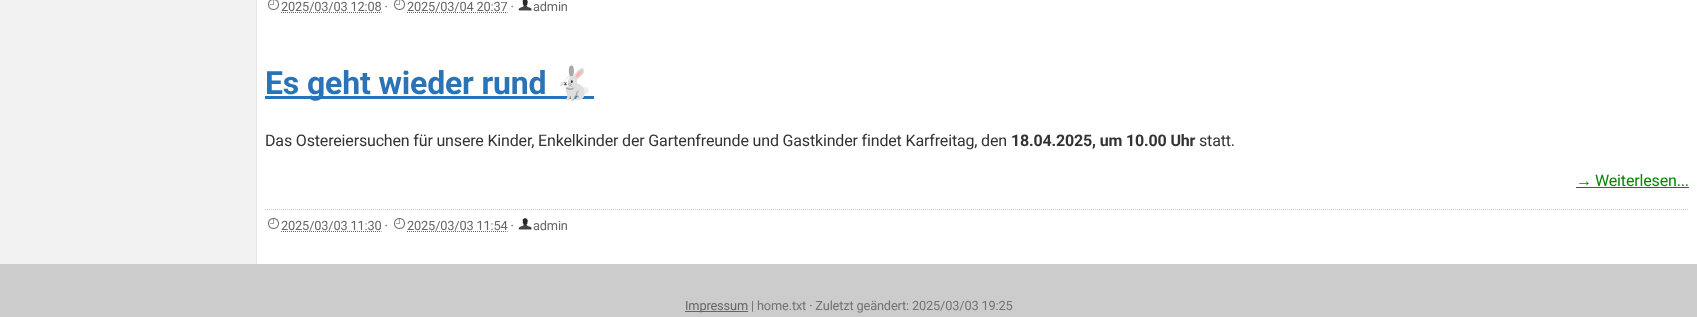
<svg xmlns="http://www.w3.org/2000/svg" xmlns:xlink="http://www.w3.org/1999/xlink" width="1697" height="317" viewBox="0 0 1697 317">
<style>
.cls-1{font:12.8px Roboto;letter-spacing:-0.16px;fill:#666666}
.cls-2{font:bold 32px Roboto;letter-spacing:-0.16px;fill:#2b73b7}
.cls-3{font:bold 32px Noto Color Emoji;letter-spacing:-0.16px;fill:#2b73b7}
.cls-4{font:16px Roboto;letter-spacing:-0.16px;fill:#333333}
.cls-5{font:bold 16px Roboto;letter-spacing:-0.16px;fill:#333333}
.cls-6{font:16px Liberation Sans;letter-spacing:-0.16px;fill:#008800}
.cls-7{font:16px Roboto;letter-spacing:-0.16px;fill:#008800}
.cls-8{font:12.8px Roboto;letter-spacing:-0.16px;fill:#737373}
</style>
<rect width="100%" height="100%" fill="#ffffff"/>
<rect fill="#f2f2f2" x="0" y="0" width="256" height="264"/>
<rect fill="#e5e5e5" x="256" y="0" width="1" height="264"/>
<image xlink:href="image0.png" x="268" y="0" width="11" height="10"/>
<path fill="none" stroke="#666666" stroke-dasharray="1 1" d="M281 12.5H381.5"/>
<image xlink:href="image0.png" x="394" y="0" width="11" height="10"/>
<path fill="none" stroke="#666666" stroke-dasharray="1 1" d="M407 12.5H507.5"/>
<image xlink:href="image1.png" x="518" y="0" width="14" height="11"/>
<rect fill="#2b73b7" x="265" y="96" width="329" height="3"/>
<rect fill="#008800" x="1576" y="187" width="113" height="1"/>
<path fill="none" stroke="#cccccc" stroke-dasharray="1 1" d="M265 209.5H1689"/>
<image xlink:href="image2.png" x="268" y="218" width="11" height="11"/>
<path fill="none" stroke="#666666" stroke-dasharray="1 1" d="M281 231.5H381.5"/>
<image xlink:href="image2.png" x="394" y="218" width="11" height="11"/>
<path fill="none" stroke="#666666" stroke-dasharray="1 1" d="M407 231.5H507.5"/>
<image xlink:href="image3.png" x="518" y="218" width="14" height="12"/>
<rect fill="#cccccc" x="0" y="264" width="1697" height="53"/>
<rect fill="#666666" x="685" y="311" width="63" height="1"/>
<text class="cls-1" x="281" y="11">2025/03/03 12:08 ·</text>
<text class="cls-1" x="407" y="11">2025/03/04 20:37 ·</text>
<text class="cls-1" x="533" y="11">admin</text>
<text class="cls-2" x="265" y="94">Es geht wieder rund</text>
<text class="cls-3" x="554" y="94">🐇</text>
<text class="cls-4" x="265" y="146">Das Ostereiersuchen für unsere Kinder, Enkelkinder der Gartenfreunde und Gastkinder findet Karfreitag, den</text>
<text class="cls-5" x="1011" y="146">18.04.2025, um 10.00 Uhr</text>
<text class="cls-4" x="1199" y="146">statt.</text>
<text class="cls-6" x="1576" y="186">→</text>
<text class="cls-7" x="1595" y="186">Weiterlesen...</text>
<text class="cls-1" x="281" y="230">2025/03/03 11:30 ·</text>
<text class="cls-1" x="407" y="230">2025/03/03 11:54 ·</text>
<text class="cls-1" x="533" y="230">admin</text>
<text class="cls-1" x="685" y="310">Impressum</text>
<text class="cls-8" x="751" y="310">| home.txt · Zuletzt geändert: 2025/03/03 19:25</text>
</svg>
